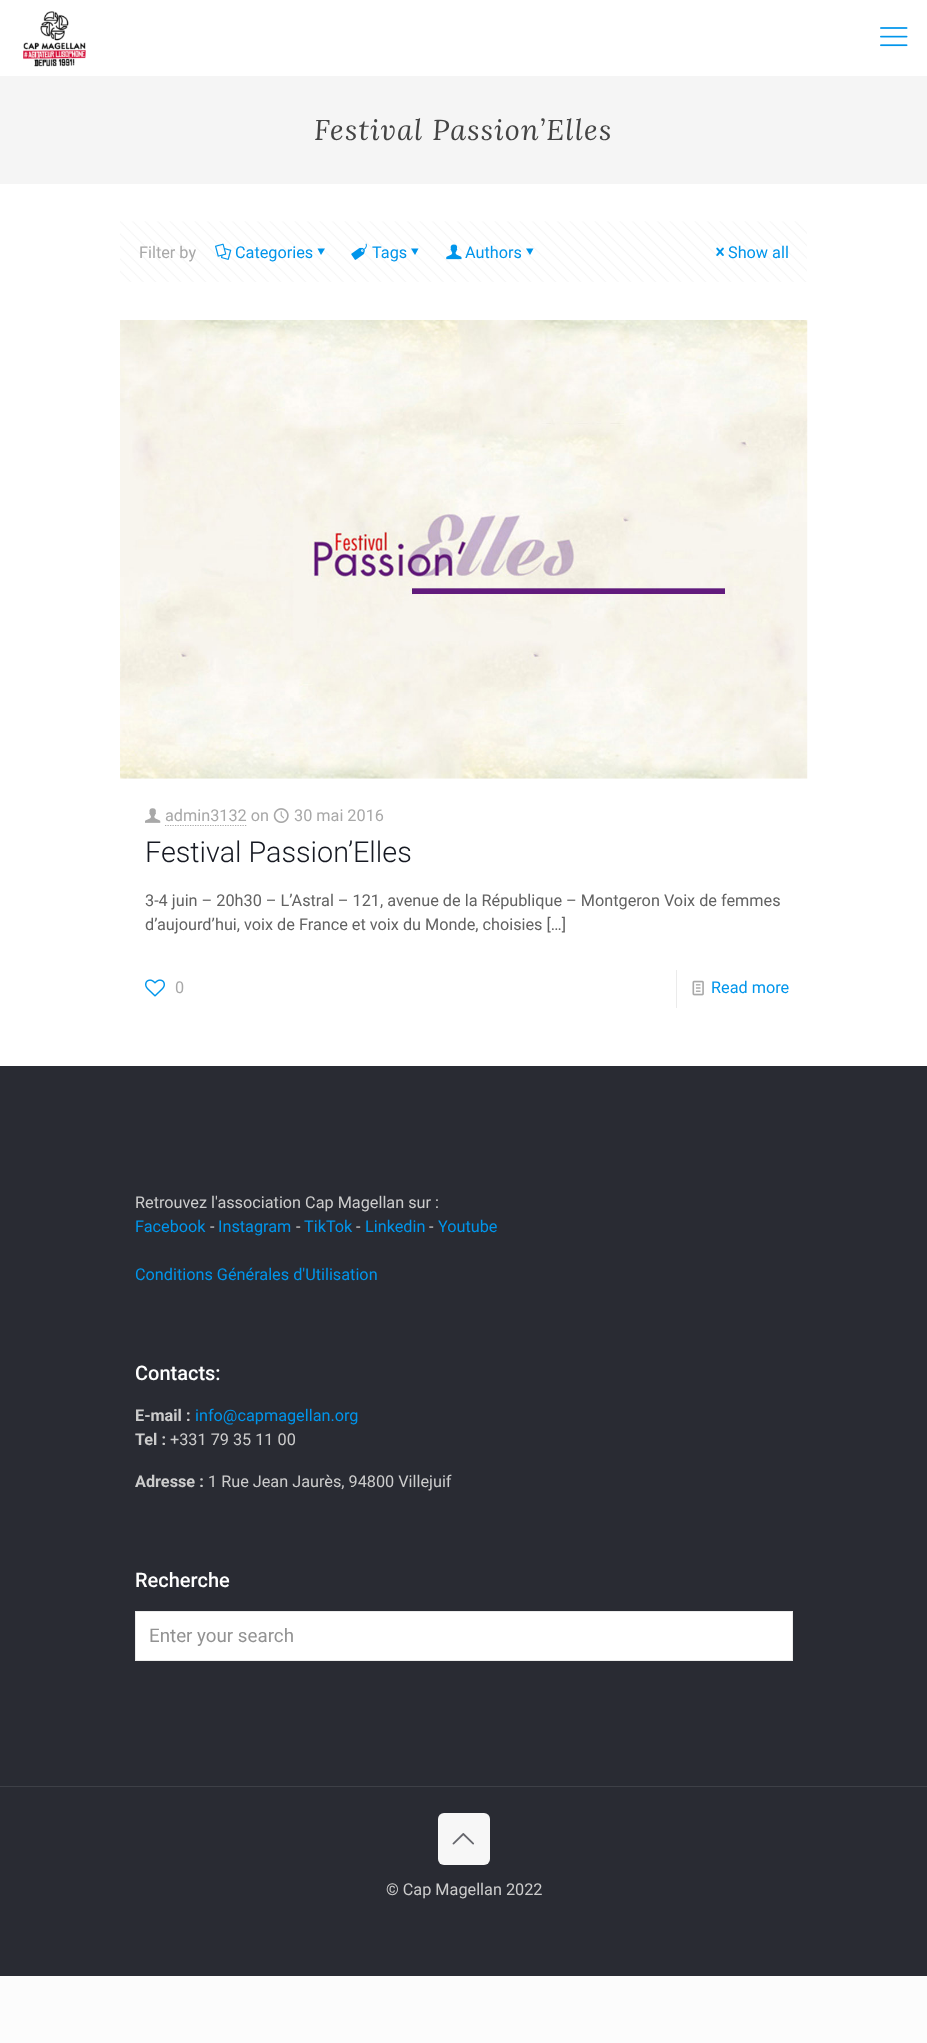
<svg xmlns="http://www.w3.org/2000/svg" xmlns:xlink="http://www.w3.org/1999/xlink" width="927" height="2043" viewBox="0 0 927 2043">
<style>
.cls-1{font:italic 28.75px Lora;letter-spacing:1.25px;fill:#444444}
.cls-2{font:16.25px Roboto;fill:#a8a8a8}
.cls-3{font:16.25px Roboto;fill:#0095eb}
.cls-4{font:300 28.75px Roboto;fill:#161922}
.cls-5{font:16.25px Roboto;fill:#626262}
.cls-6{font:16.25px Roboto;fill:#cccccc}
.cls-7{font:500 20px Roboto;fill:#ffffff}
.cls-8{font:bold 16.25px Roboto;fill:#cccccc}
.cls-9{font:18.75px Roboto;fill:#929292}
</style>
<rect width="100%" height="100%" fill="#fcfcfc"/>
<rect fill="#ffffff" x="0" y="184" width="927" height="882"/>
<rect fill="#ffffff" x="0" y="0" width="927" height="76"/>
<image xlink:href="image0.png" x="23" y="11" width="63" height="56"/>
<image xlink:href="image1.png" x="880" y="27" width="28" height="20"/>
<rect fill="#f5f5f5" x="0" y="76" width="927" height="108"/>
<image xlink:href="image2.png" x="120" y="221" width="687" height="61"/>
<image xlink:href="image3.png" x="215" y="243" width="17" height="17"/>
<path fill="#0095eb" d="M325 248.5L321 255L317.5 248.5Z"/>
<image xlink:href="image4.png" x="351" y="243" width="16" height="17"/>
<path fill="#0095eb" d="M418.5 248.5L415 255L411 248.5Z"/>
<image xlink:href="image5.png" x="446" y="244" width="16" height="16"/>
<path fill="#0095eb" d="M533.5 248.5L530 255L526 248.5Z"/>
<image xlink:href="image6.png" x="716" y="247" width="8" height="9"/>
<image xlink:href="image7.png" x="120" y="320" width="688" height="459"/>
<image xlink:href="image8.png" x="145" y="808" width="16" height="15"/>
<path fill="none" stroke="#a8a8a8" stroke-width="1.2" stroke-dasharray="1.25 1.25" d="M165 825.5H247.5"/>
<image xlink:href="image9.png" x="273" y="808" width="16" height="15"/>
<image xlink:href="image10.png" x="145" y="979" width="20" height="18"/>
<rect fill="#ebebeb" x="676" y="970" width="1" height="38"/>
<image xlink:href="image11.png" x="692" y="980" width="12" height="16"/>
<rect fill="#292b33" x="0" y="1066" width="927" height="910"/>
<rect fill="#ffffff" stroke="#ebebeb" x="135.5" y="1611.5" width="657" height="49"/>
<rect fill="#3e4047" x="0" y="1786" width="927" height="1"/>
<rect fill="#f7f7f7" x="438" y="1813" width="52" height="52" rx="6"/>
<image xlink:href="image12.png" x="452" y="1833" width="22" height="12"/>
<text class="cls-1" x="314" y="140">Festival Passion’Elles</text>
<text class="cls-2" x="139" y="258">Filter by</text>
<text class="cls-3" x="235" y="258">Categories</text>
<text class="cls-3" x="372" y="258">Tags</text>
<text class="cls-3" x="465" y="258">Authors</text>
<text class="cls-3" x="728" y="258">Show all</text>
<text class="cls-2" x="165" y="821">admin3132 on</text>
<text class="cls-2" x="294" y="821">30 mai 2016</text>
<text class="cls-4" x="145" y="862">Festival Passion’Elles</text>
<text class="cls-5"><tspan x="145" y="906">3-4 juin – 20h30 – L’Astral – 121, avenue de la République – Montgeron Voix de femmes</tspan><tspan x="145" y="930">d’aujourd’hui, voix de France et voix du Monde, choisies […]</tspan></text>
<text class="cls-2" x="175" y="993">0</text>
<text class="cls-3" x="711" y="993">Read more</text>
<text class="cls-6" x="135" y="1208">Retrouvez l'association Cap Magellan sur :</text>
<text class="cls-3" x="135" y="1232">Facebook</text>
<text class="cls-6" x="210" y="1232">-</text>
<text class="cls-3" x="218" y="1232">Instagram</text>
<text class="cls-6" x="296" y="1232">-</text>
<text class="cls-3" x="304" y="1232">TikTok</text>
<text class="cls-6" x="356" y="1232">-</text>
<text class="cls-3" x="365" y="1232">Linkedin</text>
<text class="cls-6" x="429" y="1232">-</text>
<text class="cls-3" x="438" y="1232">Youtube</text>
<text class="cls-3" x="135" y="1280">Conditions Générales d'Utilisation</text>
<text class="cls-7" x="135" y="1380">Contacts:</text>
<text class="cls-8" x="135" y="1421">E-mail :</text>
<text class="cls-3" x="195" y="1421">info@capmagellan.org</text>
<text class="cls-8" x="135" y="1445">Tel :</text>
<text class="cls-6" x="170" y="1445">+331 79 35 11 00</text>
<text class="cls-8" x="135" y="1487">Adresse :</text>
<text class="cls-6" x="208" y="1487">1 Rue Jean Jaurès, 94800 Villejuif</text>
<text class="cls-7" x="135" y="1587">Recherche</text>
<text class="cls-9" x="149" y="1642">Enter your search</text>
<text class="cls-6" x="386" y="1895">© Cap Magellan 2022</text>
</svg>
